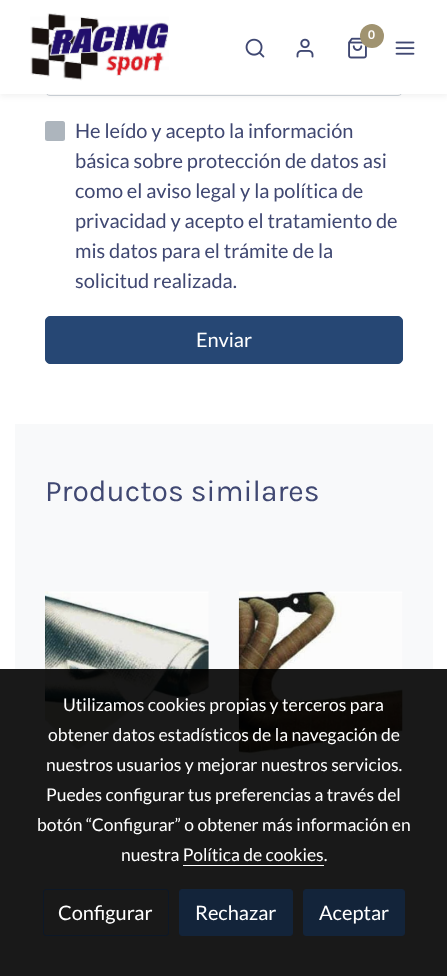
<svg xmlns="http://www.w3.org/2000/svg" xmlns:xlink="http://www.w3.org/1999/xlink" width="447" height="976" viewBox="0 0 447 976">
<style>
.cls-1{font:bold 12px Lato;fill:#ffffff}
.cls-2{font:20px Lato;fill:#404872}
.cls-3{font:20px Lato;fill:#ffffff}
.cls-4{font:30px Karla;fill:#404872}
.cls-5{font:17.5px Lato;fill:#ffffff}
</style>
<rect width="100%" height="100%" fill="#ffffff"/>
<rect fill="none" stroke="#ced4da" x="45.5" y="49.5" width="357" height="46" rx="4.5"/>
<rect fill="#000000" fill-opacity="0.06" filter="blur(3px)" x="0" y="3" width="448" height="93"/>
<rect fill="#ffffff" x="0" y="0" width="447" height="94"/>
<image xlink:href="image0.png" x="30" y="13" width="139" height="68"/>
<image xlink:href="image1.png" x="348" y="37" width="19" height="22"/>
<circle fill="#a09370" cx="372" cy="36" r="12"/>
<image xlink:href="image2.png" x="245" y="38" width="20" height="20"/>
<image xlink:href="image3.png" x="296" y="38" width="18" height="20"/>
<image xlink:href="image4.png" x="395" y="41" width="20" height="14"/>
<rect fill="#adb5bd" x="45" y="121" width="20" height="20" rx="2.5"/>
<rect fill="#264774" stroke="#264774" x="45.5" y="316.5" width="357" height="47" rx="4.5"/>
<rect fill="#f8f9fa" x="15" y="424" width="418" height="552"/>
<image xlink:href="image5.png" x="45" y="591" width="164" height="164"/>
<image xlink:href="image6.png" x="238" y="591" width="165" height="164"/>
<rect fill="#000000" fill-opacity="0.9" x="0" y="669" width="447" height="307"/>
<rect fill="#ffffff" x="183" y="865" width="141" height="1"/>
<rect fill="none" stroke="#0d1827" x="43.5" y="889.5" width="125" height="46" rx="2.5"/>
<rect fill="#13243a" stroke="#13243a" x="179.5" y="889.5" width="113" height="46" rx="2.5"/>
<rect fill="#13243a" stroke="#13243a" x="303.5" y="889.5" width="101" height="46" rx="2.5"/>
<text class="cls-1" x="368" y="39">0</text>
<text class="cls-2"><tspan x="75" y="138">He leído y acepto la información</tspan><tspan x="75" y="168">básica sobre protección de datos asi</tspan><tspan x="75" y="198">como el aviso legal y la política de</tspan><tspan x="75" y="228">privacidad y acepto el tratamiento de</tspan><tspan x="75" y="258">mis datos para el trámite de la</tspan><tspan x="75" y="288">solicitud realizada.</tspan></text>
<text class="cls-3" x="196" y="347">Enviar</text>
<text class="cls-4" x="45" y="501">Productos similares</text>
<text class="cls-5" x="63" y="711">Utilizamos cookies propias y terceros para</text>
<text class="cls-5" x="48" y="741">obtener datos estadísticos de la navegación de</text>
<text class="cls-5"><tspan x="46" y="771">nuestros usuarios y mejorar nuestros servicios.</tspan><tspan x="46" y="801">Puedes configurar tus preferencias a través del</tspan></text>
<text class="cls-5" x="37" y="831">botón “Configurar” o obtener más información en</text>
<text class="cls-5" x="121" y="861">nuestra Política de cookies.</text>
<text class="cls-3" x="58" y="920">Configurar</text>
<text class="cls-3" x="195" y="920">Rechazar</text>
<text class="cls-3" x="319" y="920">Aceptar</text>
</svg>
